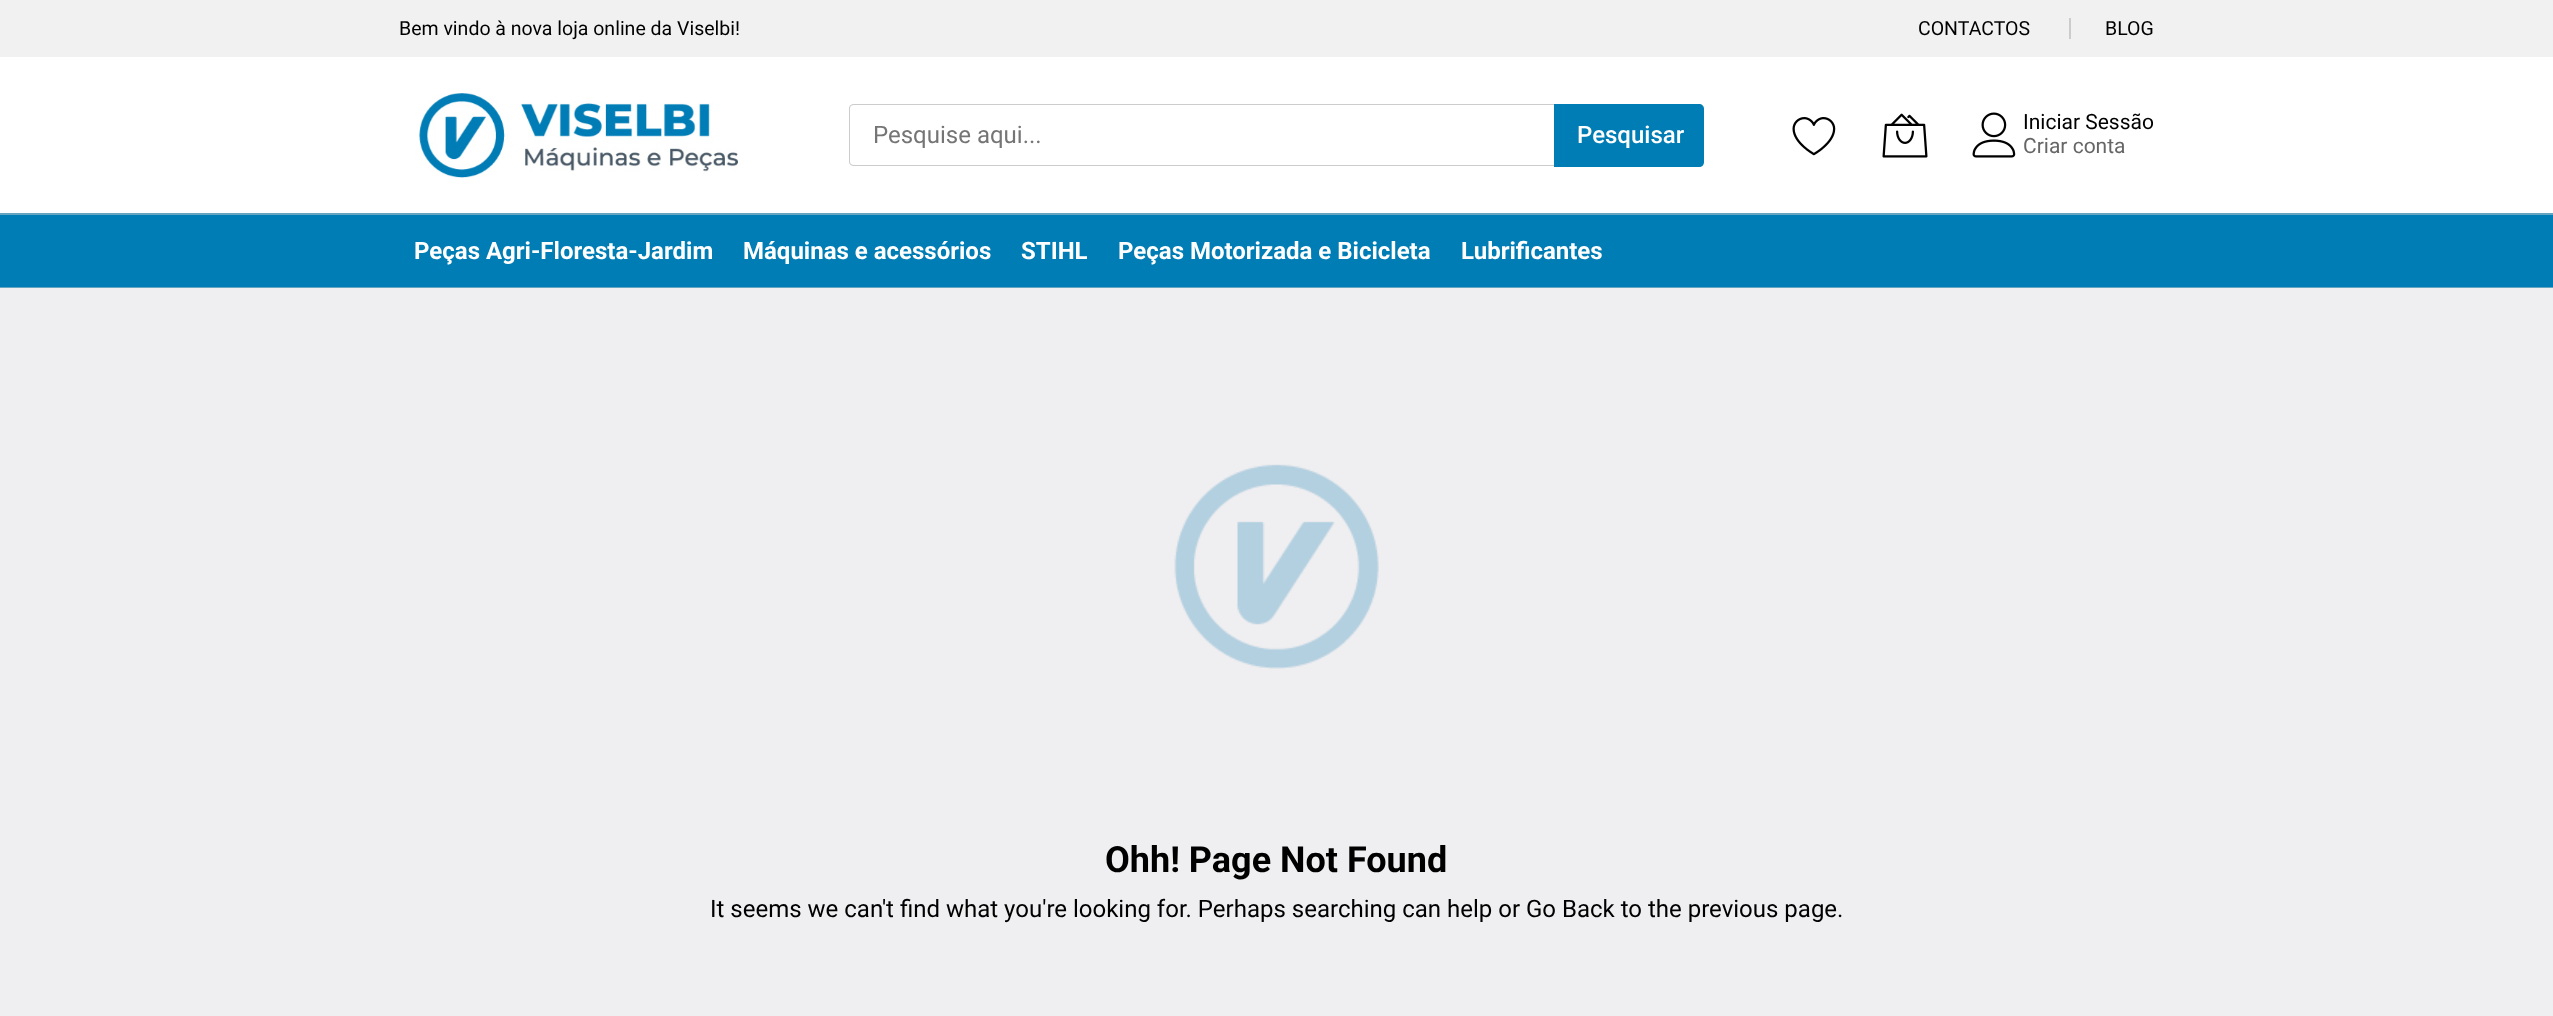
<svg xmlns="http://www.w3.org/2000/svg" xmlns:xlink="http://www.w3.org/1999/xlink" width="2553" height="1016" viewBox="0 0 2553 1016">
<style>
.cls-1{font:19.5px Roboto;fill:#000000}
.cls-2{font:24px Roboto;fill:#757575}
.cls-3{font:500 24px Roboto;fill:#ffffff}
.cls-4{font:21px Roboto;fill:#000000}
.cls-5{font:21px Roboto;fill:#666666}
.cls-6{font:bold 24px Roboto;fill:#ffffff}
.cls-7{font:bold 36px Roboto;fill:#000000}
.cls-8{font:24px Roboto;fill:#000000}
</style>
<rect width="100%" height="100%" fill="#ffffff"/>
<rect fill="#f1f1f1" x="0" y="0" width="2553" height="57"/>
<rect fill="#cccccc" x="2069" y="18" width="2" height="21"/>
<image xlink:href="image0.png" x="419" y="93" width="319" height="85"/>
<path fill="#cccccc" fill-rule="evenodd" d="M854 104H1554V166H854C851 166 849 164 849 162V108C849 106 851 104 854 104ZM854 105H1554V165H854C852 165 850 164 850 162V108C850 106 852 105 854 105Z"/>
<path fill="#007db4" d="M1554 104H1699C1702 104 1704 106 1704 109V162C1704 165 1702 167 1699 167H1554Z"/>
<image xlink:href="image1.png" x="1792" y="117" width="44" height="39"/>
<image xlink:href="image2.png" x="1882" y="113" width="46" height="45"/>
<image xlink:href="image3.png" x="1972" y="112" width="44" height="46"/>
<rect fill="#007db4" x="0" y="215" width="2553" height="72"/>
<rect fill="#66a5c0" x="0" y="287" width="2553" height="1"/>
<rect fill="#66a5c0" x="0" y="213" width="2553" height="2"/>
<rect fill="#efeef0" x="0" y="288" width="2553" height="728"/>
<image xlink:href="image4.png" x="1174" y="464" width="205" height="205"/>
<text class="cls-1" x="399" y="35">Bem vindo à nova loja online da Viselbi!</text>
<text class="cls-1" x="1918" y="35">CONTACTOS</text>
<text class="cls-1" x="2105" y="35">BLOG</text>
<text class="cls-2" x="873" y="143">Pesquise aqui...</text>
<text class="cls-3" x="1577" y="143">Pesquisar</text>
<text class="cls-4" x="2023" y="129">Iniciar Sessão</text>
<text class="cls-5" x="2023" y="153">Criar conta</text>
<text class="cls-6" x="414" y="259">Peças Agri-Floresta-Jardim</text>
<text class="cls-6" x="743" y="259">Máquinas e acessórios</text>
<text class="cls-6" x="1021" y="259">STIHL</text>
<text class="cls-6" x="1118" y="259">Peças Motorizada e Bicicleta</text>
<text class="cls-6" x="1461" y="259">Lubrificantes</text>
<text class="cls-7" x="1105" y="872">Ohh! Page Not Found</text>
<text class="cls-8" x="710" y="917">It seems we can't find what you're looking for. Perhaps searching can help or Go Back to the previous page.</text>
</svg>
